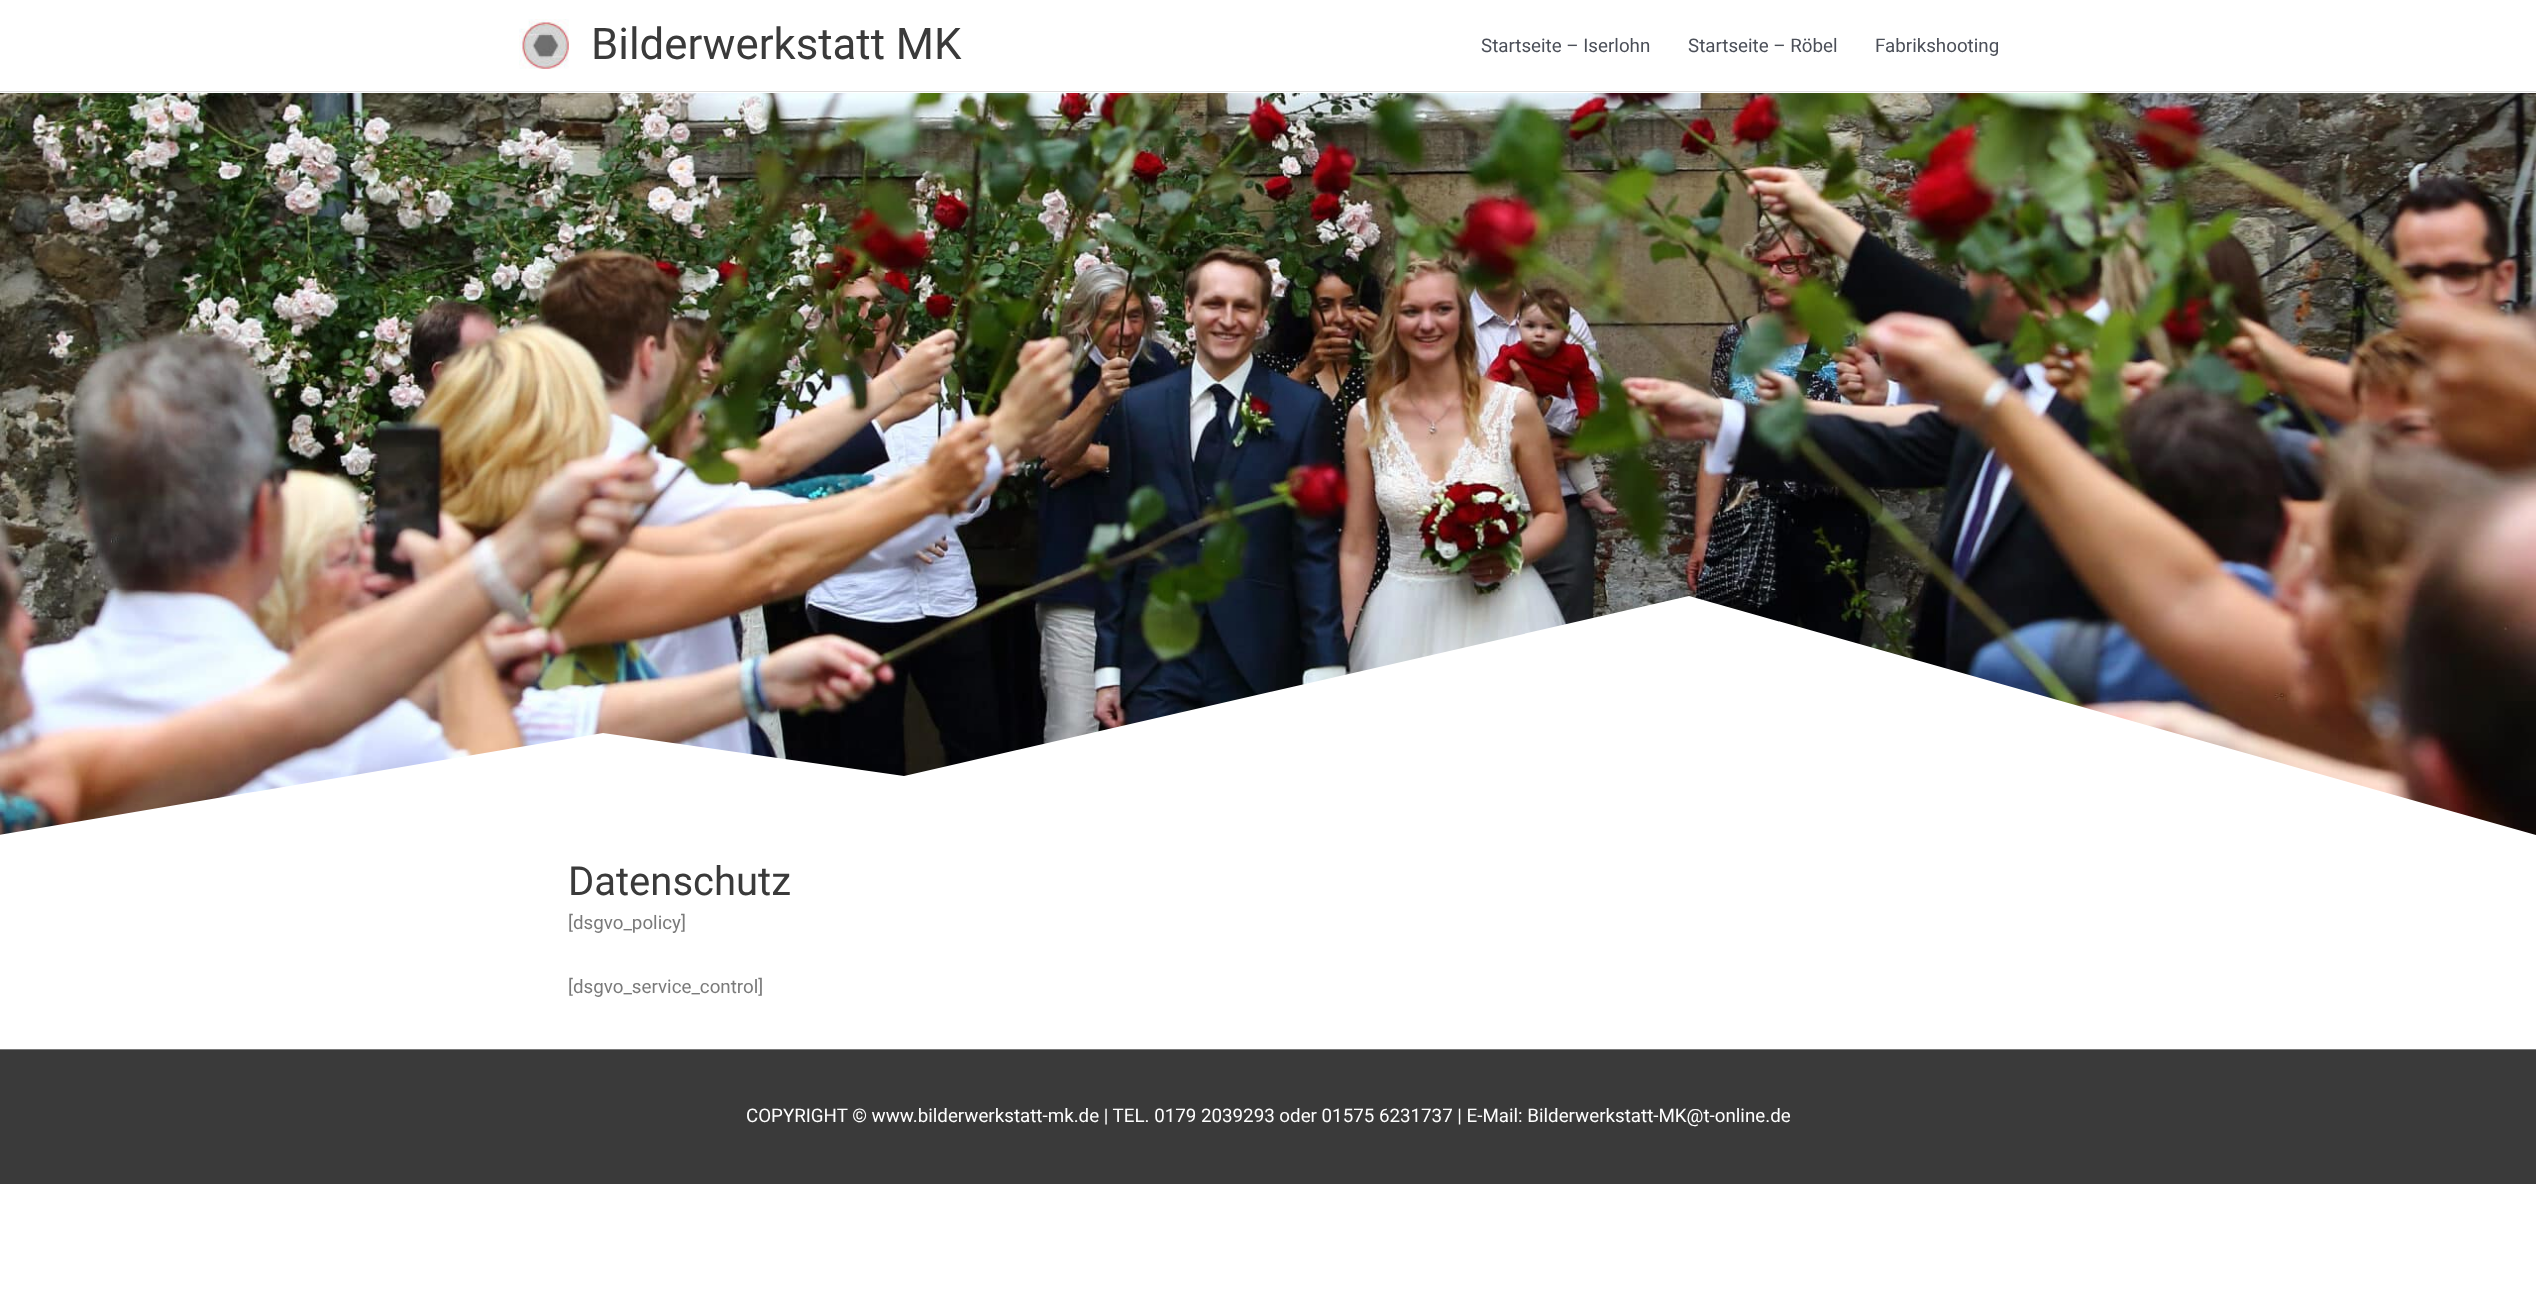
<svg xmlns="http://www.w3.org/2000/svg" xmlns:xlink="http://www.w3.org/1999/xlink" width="2536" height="1293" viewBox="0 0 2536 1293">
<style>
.cls-1{font:43.75px Roboto;fill:#3a3a3a}
.cls-2{font:18.75px Roboto;fill:#4b4f58}
.cls-3{font:40px Roboto;fill:#3a3a3a}
.cls-4{font:18.75px Roboto;fill:#7a7a7a}
.cls-5{font:18.75px Roboto;fill:#ffffff}
</style>
<rect width="100%" height="100%" fill="#ffffff"/>
<rect fill="#dddddd" x="0" y="91" width="2536" height="1"/>
<image xlink:href="image0.png" x="519" y="19" width="50" height="50"/>
<image xlink:href="image1.png" x="0" y="93" width="2536" height="742"/>
<path fill="#ffffff" d="M603 733L904 776L1689 596L2536 835V845H-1V835"/>
<rect fill="#7a7a7a" x="0" y="1049" width="2536" height="1"/>
<rect fill="#3a3a3a" x="0" y="1050" width="2536" height="134"/>
<text class="cls-1" x="591" y="59">Bilderwerkstatt MK</text>
<text class="cls-2" x="1481" y="52">Startseite – Iserlohn</text>
<text class="cls-2" x="1688" y="52">Startseite – Röbel</text>
<text class="cls-2" x="1875" y="52">Fabrikshooting</text>
<text class="cls-3" x="568" y="895">Datenschutz</text>
<text class="cls-4" x="568" y="929">[dsgvo_policy]</text>
<text class="cls-4" x="568" y="993">[dsgvo_service_control]</text>
<text class="cls-5" x="746" y="1122">COPYRIGHT © www.bilderwerkstatt-mk.de | TEL. 0179 2039293 oder 01575 6231737 | E-Mail: Bilderwerkstatt-MK@t-online.de</text>
</svg>
